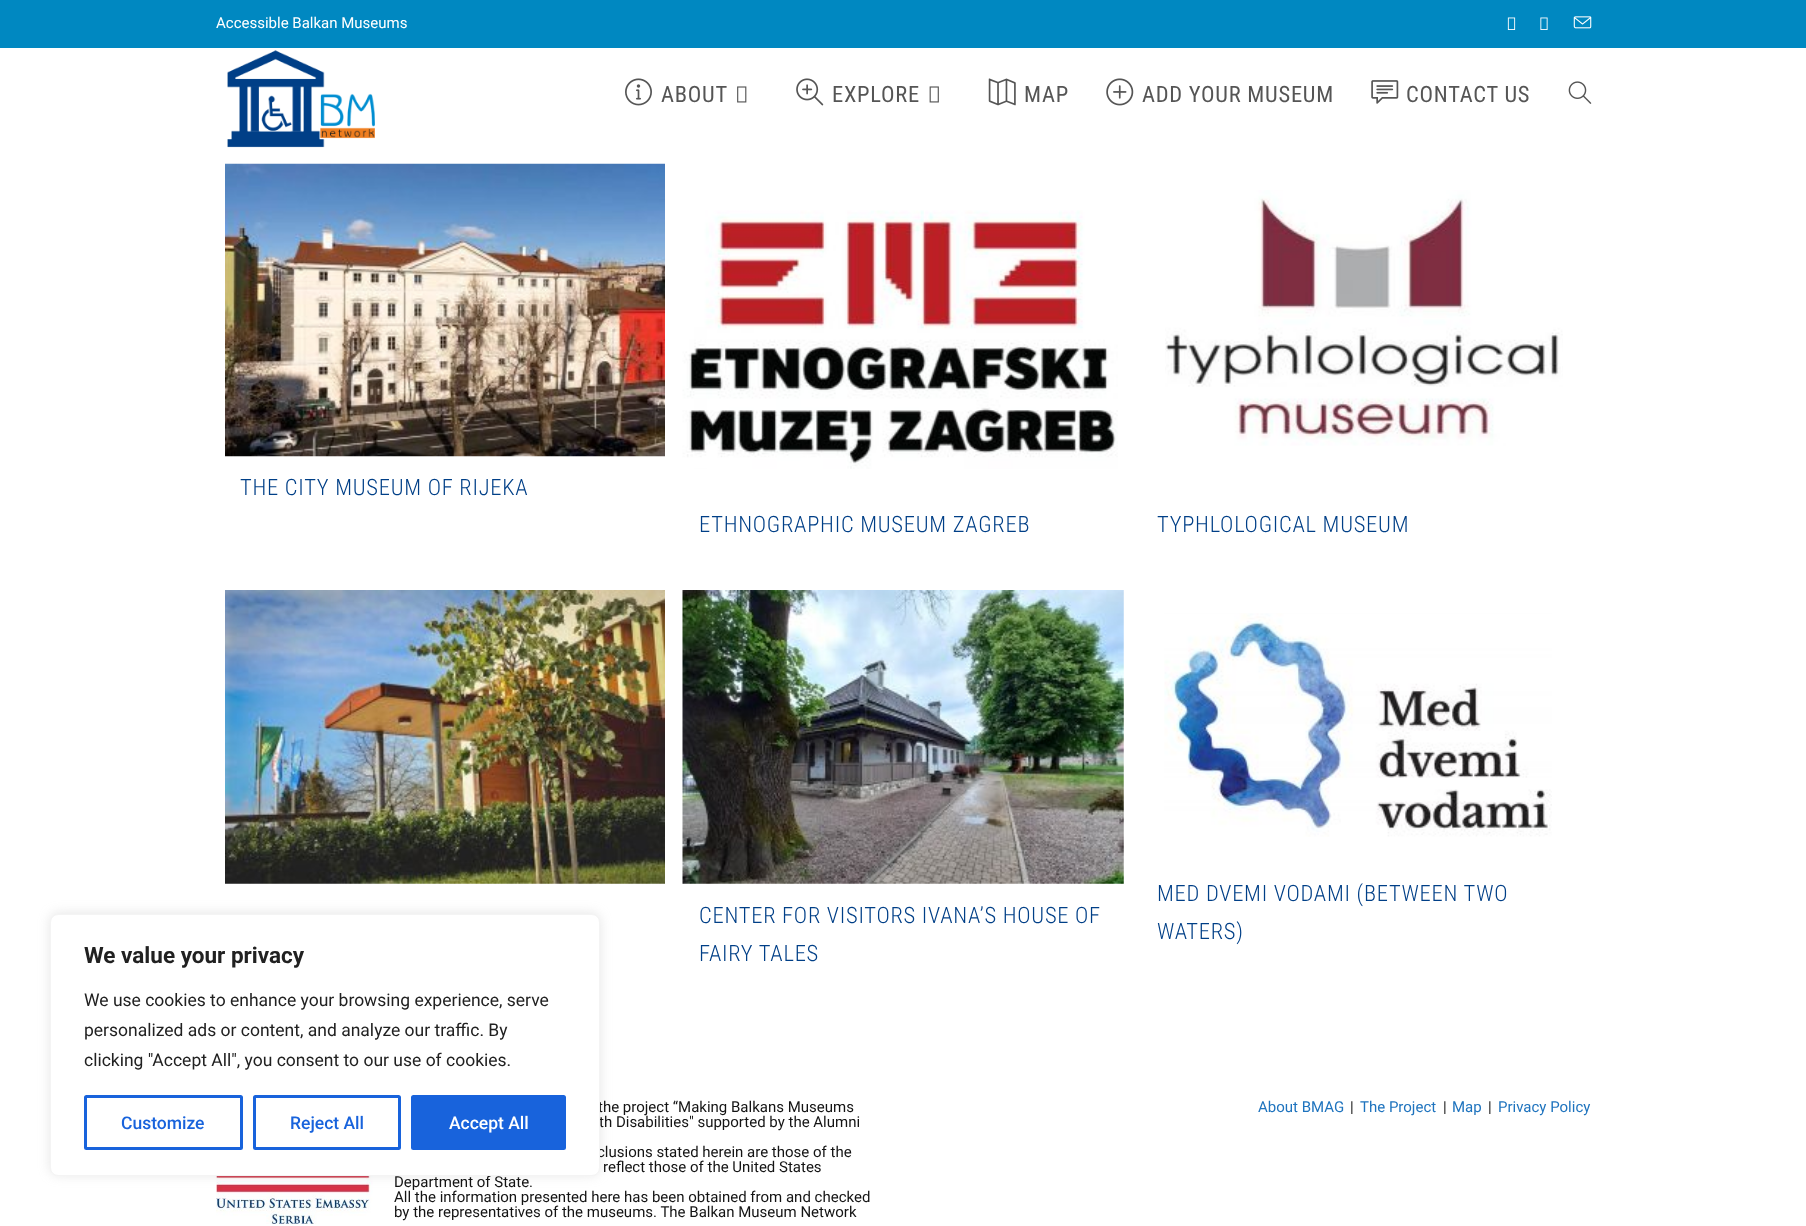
<svg xmlns="http://www.w3.org/2000/svg" xmlns:xlink="http://www.w3.org/1999/xlink" width="1806" height="1226" viewBox="0 0 1806 1226">
<style>
.cls-1{font:15px Roboto;fill:#ffffff}
.cls-2{font:22.5px Roboto Condensed;letter-spacing:0.75px;fill:#555555}
.cls-3{font:300 22.5px Roboto Condensed;letter-spacing:0.75px;fill:#003f87}
.cls-4{font:15px Roboto;fill:#141414}
.cls-5{font:15px Roboto;fill:#1e73be}
.cls-6{font:bold 22.5px Roboto;fill:#212121}
.cls-7{font:17.5px Roboto;fill:#212121}
.cls-8{font:500 17.5px Roboto;fill:#1863dc}
.cls-9{font:500 17.5px Roboto;fill:#ffffff}
</style>
<rect width="100%" height="100%" fill="#ffffff"/>
<rect fill="#0088c1" x="0" y="0" width="1806" height="48"/>
<image xlink:href="image0.png" x="1507" y="17" width="9" height="13"/>
<image xlink:href="image1.png" x="1540" y="17" width="8" height="13"/>
<image xlink:href="image2.png" x="1573" y="16" width="19" height="13"/>
<image xlink:href="image3.png" x="227" y="50" width="148" height="98"/>
<image xlink:href="image4.png" x="625" y="78" width="27" height="28"/>
<image xlink:href="image5.png" x="737" y="86" width="10" height="17"/>
<image xlink:href="image6.png" x="796" y="78" width="28" height="28"/>
<image xlink:href="image7.png" x="929" y="86" width="10" height="17"/>
<image xlink:href="image8.png" x="988" y="78" width="28" height="28"/>
<image xlink:href="image9.png" x="1106" y="78" width="28" height="28"/>
<image xlink:href="image10.png" x="1371" y="80" width="28" height="24"/>
<image xlink:href="image11.png" x="1568" y="81" width="24" height="23"/>
<image xlink:href="image12.png" x="225" y="163" width="440" height="294"/>
<image xlink:href="image13.png" x="682" y="210" width="436" height="259"/>
<image xlink:href="image14.png" x="1165" y="190" width="398" height="256"/>
<image xlink:href="image15.png" x="225" y="590" width="440" height="294"/>
<image xlink:href="image16.png" x="682" y="590" width="442" height="294"/>
<image xlink:href="image17.png" x="1164" y="613" width="388" height="224"/>
<image xlink:href="image18.png" x="216" y="1176" width="157" height="48"/>
<rect fill="#acabab" fill-opacity="0.3" filter="blur(6px)" x="50" y="913" width="550" height="262" rx="8"/>
<text class="cls-1" x="216" y="28">Accessible Balkan Museums</text>
<text class="cls-2" x="661" y="102">ABOUT</text>
<text class="cls-2" x="832" y="102">EXPLORE</text>
<text class="cls-2" x="1024" y="102">MAP</text>
<text class="cls-2" x="1142" y="102">ADD YOUR MUSEUM</text>
<text class="cls-2" x="1406" y="102">CONTACT US</text>
<text class="cls-3" x="240" y="495">THE CITY MUSEUM OF RIJEKA</text>
<text class="cls-3" x="699" y="532">ETHNOGRAPHIC MUSEUM ZAGREB</text>
<text class="cls-3" x="1157" y="532">TYPHLOLOGICAL MUSEUM</text>
<text class="cls-3"><tspan x="699" y="923">CENTER FOR VISITORS IVANA’S HOUSE OF</tspan><tspan x="699" y="961">FAIRY TALES</tspan></text>
<text class="cls-3"><tspan x="1157" y="901">MED DVEMI VODAMI (BETWEEN TWO</tspan><tspan x="1157" y="939">WATERS)</tspan></text>
<text class="cls-4" x="598" y="1112">the project “Making Balkans Museums</text>
<text class="cls-4" x="599" y="1127">th Disabilities" supported by the Alumni</text>
<text class="cls-4" x="597" y="1157">clusions stated herein are those of the</text>
<text class="cls-4" x="603" y="1172">reflect those of the United States</text>
<text class="cls-4"><tspan x="394" y="1187">Department of State.</tspan><tspan x="394" y="1202">All the information presented here has been obtained from and checked</tspan><tspan x="394" y="1217">by the representatives of the museums. The Balkan Museum Network</tspan></text>
<text class="cls-5" x="1258" y="1112">About BMAG</text>
<text class="cls-4" x="1350" y="1112">|</text>
<text class="cls-5" x="1360" y="1112">The Project</text>
<text class="cls-4" x="1443" y="1112">|</text>
<text class="cls-5" x="1452" y="1112">Map</text>
<text class="cls-4" x="1488" y="1112">|</text>
<text class="cls-5" x="1498" y="1112">Privacy Policy</text>
<rect fill="#ffffff" stroke="#f4f4f4" x="50.5" y="914.5" width="549" height="261" rx="7.5"/>
<text class="cls-6" x="84" y="963">We value your privacy</text>
<text class="cls-7"><tspan x="84" y="1006">We use cookies to enhance your browsing experience, serve</tspan><tspan x="84" y="1036">personalized ads or content, and analyze our traffic. By</tspan><tspan x="84" y="1066">clicking "Accept All", you consent to our use of cookies.</tspan></text>
<rect fill="none" stroke="#1863dc" stroke-width="3" x="85.5" y="1096.5" width="156" height="52" rx="1"/>
<text class="cls-8" x="121" y="1129">Customize</text>
<rect fill="none" stroke="#1863dc" stroke-width="3" x="254.5" y="1096.5" width="145" height="52" rx="1"/>
<text class="cls-8" x="290" y="1129">Reject All</text>
<rect fill="#1863dc" stroke="#1863dc" stroke-width="3" x="412.5" y="1096.5" width="152" height="52" rx="1"/>
<text class="cls-9" x="449" y="1129">Accept All</text>
</svg>
